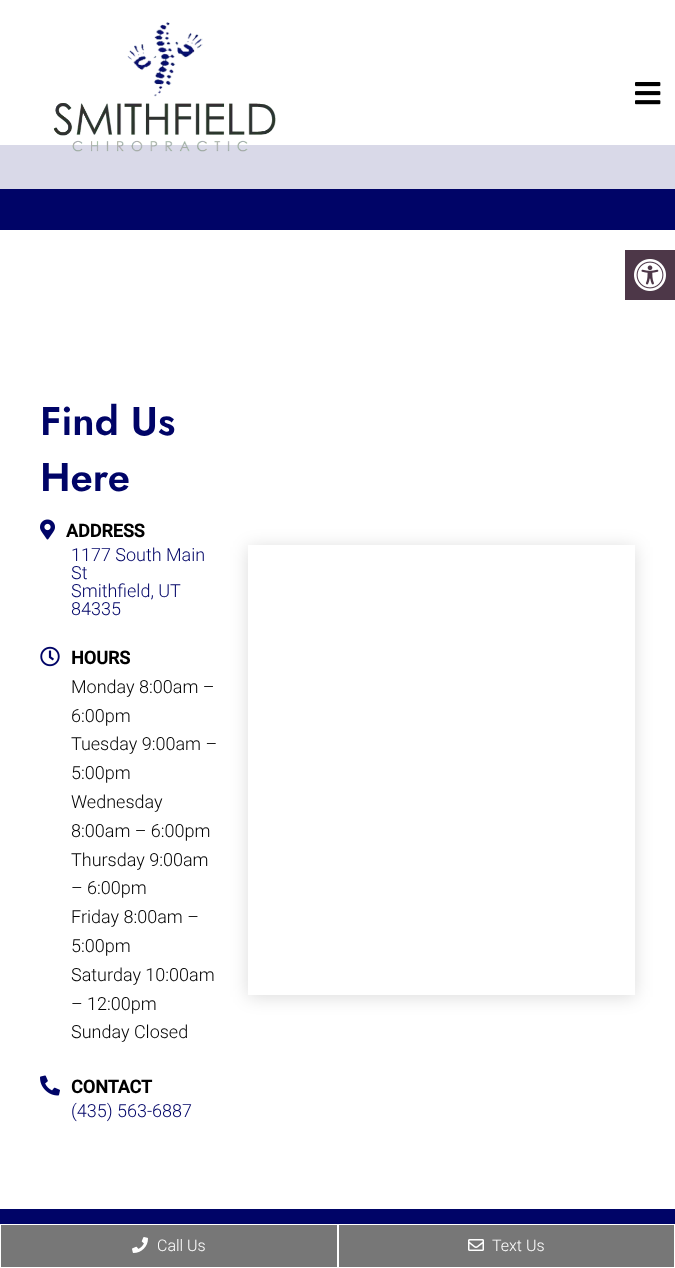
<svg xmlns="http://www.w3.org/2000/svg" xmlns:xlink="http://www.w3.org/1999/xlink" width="675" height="1268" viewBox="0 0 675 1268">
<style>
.cls-1{font:600 40px Jost;fill:#000467}
.cls-2{font:bold 18px Roboto;fill:#000000}
.cls-3{font:300 18px Roboto;fill:#000467}
.cls-4{font:300 18px Roboto;fill:#000000}
.cls-5{font:300 16px Roboto;fill:#ffffff}
</style>
<defs>
<clipPath id="clip1"><path d="M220 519H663V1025H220ZM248 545H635V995H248Z" clip-rule="evenodd"/></clipPath>
</defs>
<rect width="100%" height="100%" fill="#ffffff"/>
<rect fill="#4d3748" x="625" y="250" width="50" height="50"/>
<image xlink:href="image0.png" x="634" y="259" width="32" height="32"/>
<rect fill="#000467" x="0" y="145" width="675" height="85"/>
<rect fill="#ffffff" fill-opacity="0.85" x="0" y="145" width="675" height="44"/>
<image xlink:href="image1.png" x="53" y="22" width="223" height="130"/>
<image xlink:href="image2.png" x="635" y="82" width="26" height="23"/>
<image xlink:href="image3.png" x="40" y="519" width="15" height="21"/>
<image xlink:href="image4.png" x="40" y="646" width="20" height="21"/>
<image xlink:href="image5.png" x="40" y="1075" width="20" height="21"/>
<g clip-path="url(#clip1)">
<rect fill="#000000" fill-opacity="0.14" filter="blur(9px)" x="248" y="547" width="387" height="450"/>
</g>
<rect fill="#000467" x="0" y="1209" width="675" height="15"/>
<rect fill="#777777" x="1" y="1225" width="336" height="42"/>
<image xlink:href="image6.png" x="132" y="1237" width="16" height="16"/>
<rect fill="#777777" x="339" y="1225" width="335" height="42"/>
<image xlink:href="image7.png" x="468" y="1239" width="16" height="12"/>
<text class="cls-1"><tspan x="40" y="435">Find Us</tspan><tspan x="40" y="491">Here</tspan></text>
<text class="cls-2" x="66" y="537">ADDRESS</text>
<text class="cls-3"><tspan x="71" y="561">1177 South Main</tspan><tspan x="71" y="579">St</tspan><tspan x="71" y="597">Smithfield, UT</tspan><tspan x="71" y="615">84335</tspan></text>
<text class="cls-2" x="71" y="664">HOURS</text>
<text class="cls-4"><tspan x="71" y="693">Monday 8:00am –</tspan><tspan x="71" y="722">6:00pm</tspan><tspan x="71" y="750">Tuesday 9:00am –</tspan><tspan x="71" y="779">5:00pm</tspan><tspan x="71" y="808">Wednesday</tspan><tspan x="71" y="837">8:00am – 6:00pm</tspan><tspan x="71" y="866">Thursday 9:00am</tspan><tspan x="71" y="894">– 6:00pm</tspan><tspan x="71" y="923">Friday 8:00am –</tspan><tspan x="71" y="952">5:00pm</tspan><tspan x="71" y="981">Saturday 10:00am</tspan><tspan x="71" y="1010">– 12:00pm</tspan><tspan x="71" y="1038">Sunday Closed</tspan></text>
<text class="cls-2" x="71" y="1093">CONTACT</text>
<text class="cls-3" x="71" y="1117">(435) 563-6887</text>
<text class="cls-5" x="157" y="1251">Call Us</text>
<text class="cls-5" x="492" y="1251">Text Us</text>
</svg>
